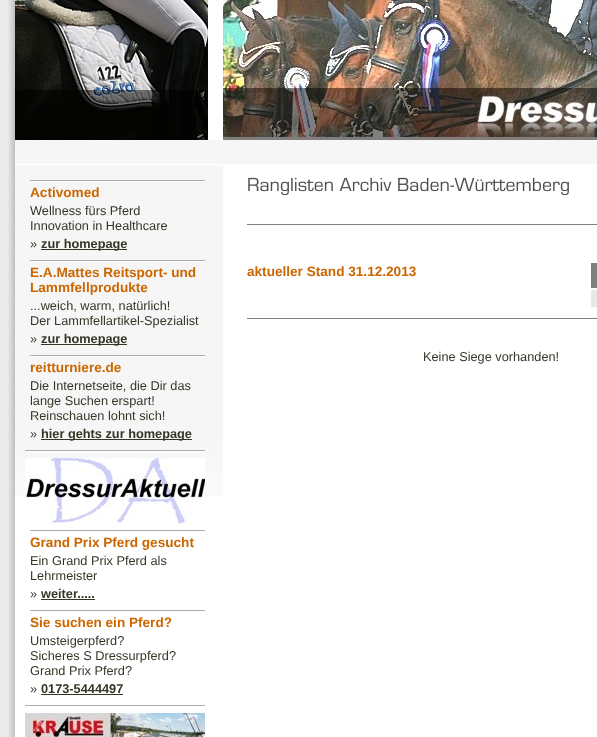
<svg xmlns="http://www.w3.org/2000/svg" xmlns:xlink="http://www.w3.org/1999/xlink" width="597" height="737" viewBox="0 0 597 737">
<style>
.cls-1{font:bold 13.6px Liberation Sans;fill:#cc6600}
.cls-2{font:12.75px Liberation Sans;fill:#323726}
.cls-3{font:bold 12.75px Liberation Sans;fill:#323726}
</style>
<rect width="100%" height="100%" fill="#ebebeb"/>
<image xlink:href="image0.png" x="8" y="0" width="589" height="737"/>
<image xlink:href="image1.png" x="15" y="0" width="193" height="140"/>
<image xlink:href="image2.png" x="223" y="0" width="374" height="140"/>
<rect fill="#f6f6f6" x="15" y="140" width="582" height="24"/>
<image xlink:href="image3.png" x="15" y="165" width="554" height="331"/>
<rect fill="#aaaaaa" x="30" y="180" width="175" height="1"/>
<rect fill="#ffffff" x="30" y="181" width="175" height="1"/>
<rect fill="#323726" x="41" y="249" width="86" height="1"/>
<rect fill="#aaaaaa" x="30" y="260" width="175" height="1"/>
<rect fill="#ffffff" x="30" y="261" width="175" height="1"/>
<rect fill="#323726" x="41" y="344" width="86" height="1"/>
<rect fill="#aaaaaa" x="30" y="355" width="175" height="1"/>
<rect fill="#ffffff" x="30" y="356" width="175" height="1"/>
<rect fill="#323726" x="41" y="439" width="151" height="1"/>
<rect fill="#aaaaaa" x="25" y="450" width="180" height="1"/>
<rect fill="#ffffff" x="25" y="451" width="180" height="1"/>
<image xlink:href="image4.png" x="25" y="458" width="180" height="66"/>
<rect fill="#aaaaaa" x="30" y="530" width="175" height="1"/>
<rect fill="#323726" x="41" y="599" width="54" height="1"/>
<rect fill="#aaaaaa" x="30" y="610" width="175" height="1"/>
<rect fill="#323726" x="41" y="694" width="82" height="1"/>
<rect fill="#aaaaaa" x="25" y="705" width="180" height="1"/>
<image xlink:href="image5.png" x="25" y="713" width="180" height="24"/>
<rect fill="#808080" x="247" y="224" width="350" height="1"/>
<rect fill="#808080" x="591" y="263" width="6" height="25"/>
<rect fill="#e8e8e8" x="591" y="290" width="6" height="17"/>
<rect fill="#808080" x="247" y="318" width="350" height="1"/>
<text class="cls-1" x="30" y="197">Activomed</text>
<text class="cls-2"><tspan x="30" y="215">Wellness fürs Pferd</tspan><tspan x="30" y="230">Innovation in Healthcare</tspan><tspan x="30" y="248">»</tspan></text>
<text class="cls-3" x="41" y="248">zur homepage</text>
<text class="cls-1"><tspan x="30" y="277">E.A.Mattes Reitsport- und</tspan><tspan x="30" y="292">Lammfellprodukte</tspan></text>
<text class="cls-2"><tspan x="30" y="310">...weich, warm, natürlich!</tspan><tspan x="30" y="325">Der Lammfellartikel-Spezialist</tspan><tspan x="30" y="343">»</tspan></text>
<text class="cls-3" x="41" y="343">zur homepage</text>
<text class="cls-1" x="30" y="372">reitturniere.de</text>
<text class="cls-2"><tspan x="30" y="390">Die Internetseite, die Dir das</tspan><tspan x="30" y="405">lange Suchen erspart!</tspan><tspan x="30" y="420">Reinschauen lohnt sich!</tspan><tspan x="30" y="438">»</tspan></text>
<text class="cls-3" x="41" y="438">hier gehts zur homepage</text>
<text class="cls-1" x="30" y="547">Grand Prix Pferd gesucht</text>
<text class="cls-2"><tspan x="30" y="565">Ein Grand Prix Pferd als</tspan><tspan x="30" y="580">Lehrmeister</tspan><tspan x="30" y="598">»</tspan></text>
<text class="cls-3" x="41" y="598">weiter.....</text>
<text class="cls-1" x="30" y="627">Sie suchen ein Pferd?</text>
<text class="cls-2"><tspan x="30" y="645">Umsteigerpferd?</tspan><tspan x="30" y="660">Sicheres S Dressurpferd?</tspan><tspan x="30" y="675">Grand Prix Pferd?</tspan><tspan x="30" y="693">»</tspan></text>
<text class="cls-3" x="41" y="693">0173-5444497</text>
<text class="cls-1" x="247" y="276">aktueller Stand 31.12.2013</text>
<text class="cls-2" x="423" y="361">Keine Siege vorhanden!</text>
</svg>
